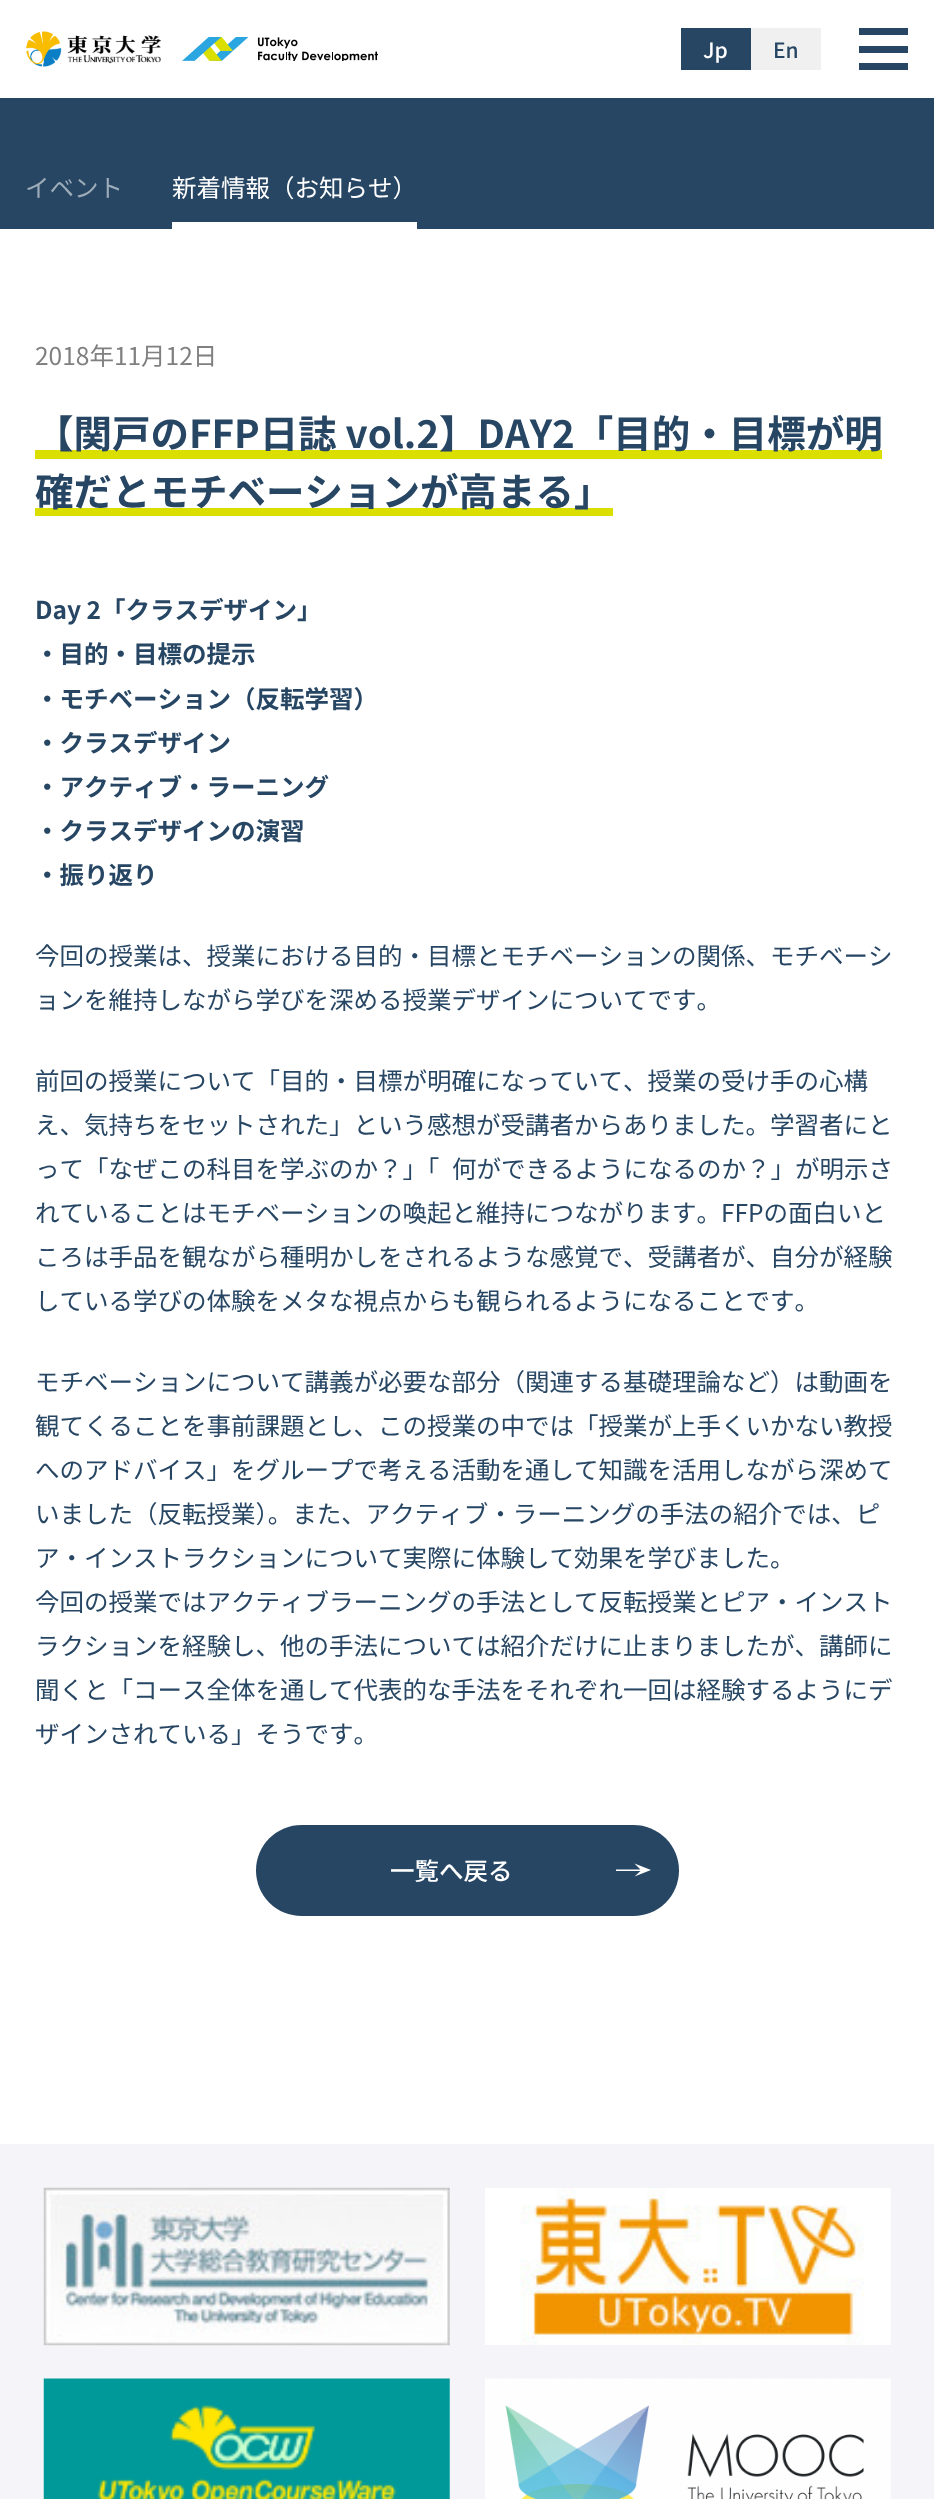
<svg xmlns="http://www.w3.org/2000/svg" xmlns:xlink="http://www.w3.org/1999/xlink" width="934" height="2499" viewBox="0 0 934 2499">
<style>*{font-kerning:none!important;font-variant-ligatures:none!important}</style>
<style>
.cls-1{font:500 21px Noto Sans JP;fill:#ffffff}
.cls-2{font:500 21px Noto Sans JP;fill:#274664}
.cls-3{font:24.5px Noto Sans JP;fill:#9eacb9}
.cls-4{font:24.5px Noto Sans JP;fill:#ffffff}
.cls-5{font:24.5px Noto Sans JP;fill:#808080}
.cls-6{font:bold 38.5px Noto Sans JP;fill:#274664}
.cls-7{font:bold 24.5px Noto Sans JP;fill:#274664}
.cls-8{font:24.5px Noto Sans JP;fill:#274664}
.cls-9{font:500 24.5px Noto Sans JP;fill:#ffffff}
</style>
<rect width="100%" height="100%" fill="#ffffff"/>
<image xlink:href="image0.png" x="26" y="31" width="135" height="36"/>
<image xlink:href="image1.png" x="182" y="37" width="196" height="24"/>
<rect fill="#274664" x="681" y="28" width="70" height="42"/>
<rect fill="#f0f0f0" x="751" y="28" width="70" height="42"/>
<rect fill="#274664" x="859" y="28" width="49" height="7"/>
<rect fill="#274664" x="859" y="46" width="49" height="7"/>
<rect fill="#274664" x="859" y="63" width="49" height="7"/>
<rect fill="#274664" x="0" y="98" width="934" height="131"/>
<rect fill="#ffffff" x="172" y="222" width="245" height="7"/>
<rect fill="#dadf00" x="35" y="450" width="847" height="9"/>
<rect fill="#dadf00" x="35" y="508" width="578" height="8"/>
<rect fill="#274664" x="256" y="1825" width="423" height="91" rx="45.5"/>
<path fill="#ffffff" d="M651 1870L634.5 1863.5L640.5 1869.5H616V1871H640.5L634.5 1876.5Z"/>
<rect fill="#f4f4f9" x="0" y="2144" width="934" height="355"/>
<image xlink:href="image2.png" x="43" y="2187" width="407" height="159"/>
<image xlink:href="image3.png" x="485" y="2188" width="406" height="157"/>
<image xlink:href="image4.png" x="43" y="2378" width="407" height="121"/>
<image xlink:href="image5.png" x="485" y="2378" width="406" height="121"/>
<text class="cls-1" x="703" y="58">Jp</text>
<text class="cls-2" x="773" y="58">En</text>
<text class="cls-3" x="25" y="197">イベント</text>
<text class="cls-4" x="172" y="197">新着情報（お知らせ）</text>
<text class="cls-5" x="35" y="365">2018年11月12日</text>
<text class="cls-6"><tspan x="35" y="448">【関戸のFFP日誌 vol.2】DAY2「目的・目標が明</tspan><tspan x="35" y="506">確だとモチベーションが高まる」</tspan></text>
<text class="cls-7"><tspan x="35" y="619">Day 2「クラスデザイン」</tspan><tspan x="35" y="663">・目的・目標の提示</tspan><tspan x="35" y="708">・モチベーション（反転学習）</tspan><tspan x="35" y="752">・クラスデザイン</tspan><tspan x="35" y="796">・アクティブ・ラーニング</tspan><tspan x="35" y="840">・クラスデザインの演習</tspan><tspan x="35" y="884">・振り返り</tspan></text>
<text class="cls-8"><tspan x="35" y="965">今回の授業は、授業における目的・目標とモチベーションの関係、モチベーシ</tspan><tspan x="35" y="1009">ョンを維持しながら学びを深める授業デザインについてです。</tspan></text>
<text class="cls-8"><tspan x="35" y="1090">前回の授業について「目的・目標が明確になっていて、授業の受け手の心構</tspan><tspan x="35" y="1134">え、気持ちをセットされた」という感想が受講者からありました。学習者にと</tspan><tspan x="35" y="1178">って「なぜこの科目を学ぶのか？」「</tspan></text>
<text class="cls-8" x="452" y="1178">何ができるようになるのか？」が明示さ</text>
<text class="cls-8"><tspan x="35" y="1222">れていることはモチベーションの喚起と維持につながります。FFPの面白いと</tspan><tspan x="35" y="1266">ころは手品を観ながら種明かしをされるような感覚で、受講者が、自分が経験</tspan><tspan x="35" y="1310">している学びの体験をメタな視点からも観られるようになることです。</tspan></text>
<text class="cls-8"><tspan x="35" y="1391">モチベーションについて講義が必要な部分（関連する基礎理論など）は動画を</tspan><tspan x="35" y="1435">観てくることを事前課題とし、この授業の中では「授業が上手くいかない教授</tspan><tspan x="35" y="1479">へのアドバイス」をグループで考える活動を通して知識を活用しながら深めて</tspan><tspan x="35" y="1523">いました（反転授業）。また、アクティブ・ラーニングの手法の紹介では、ピ</tspan><tspan x="35" y="1567">ア・インストラクションについて実際に体験して効果を学びました。</tspan><tspan x="35" y="1611">今回の授業ではアクティブラーニングの手法として反転授業とピア・インスト</tspan><tspan x="35" y="1655">ラクションを経験し、他の手法については紹介だけに止まりましたが、講師に</tspan><tspan x="35" y="1699">聞くと「コース全体を通して代表的な手法をそれぞれ一回は経験するようにデ</tspan><tspan x="35" y="1743">ザインされている」そうです。</tspan></text>
<text class="cls-9" x="390" y="1880">一覧へ戻る</text>
</svg>
